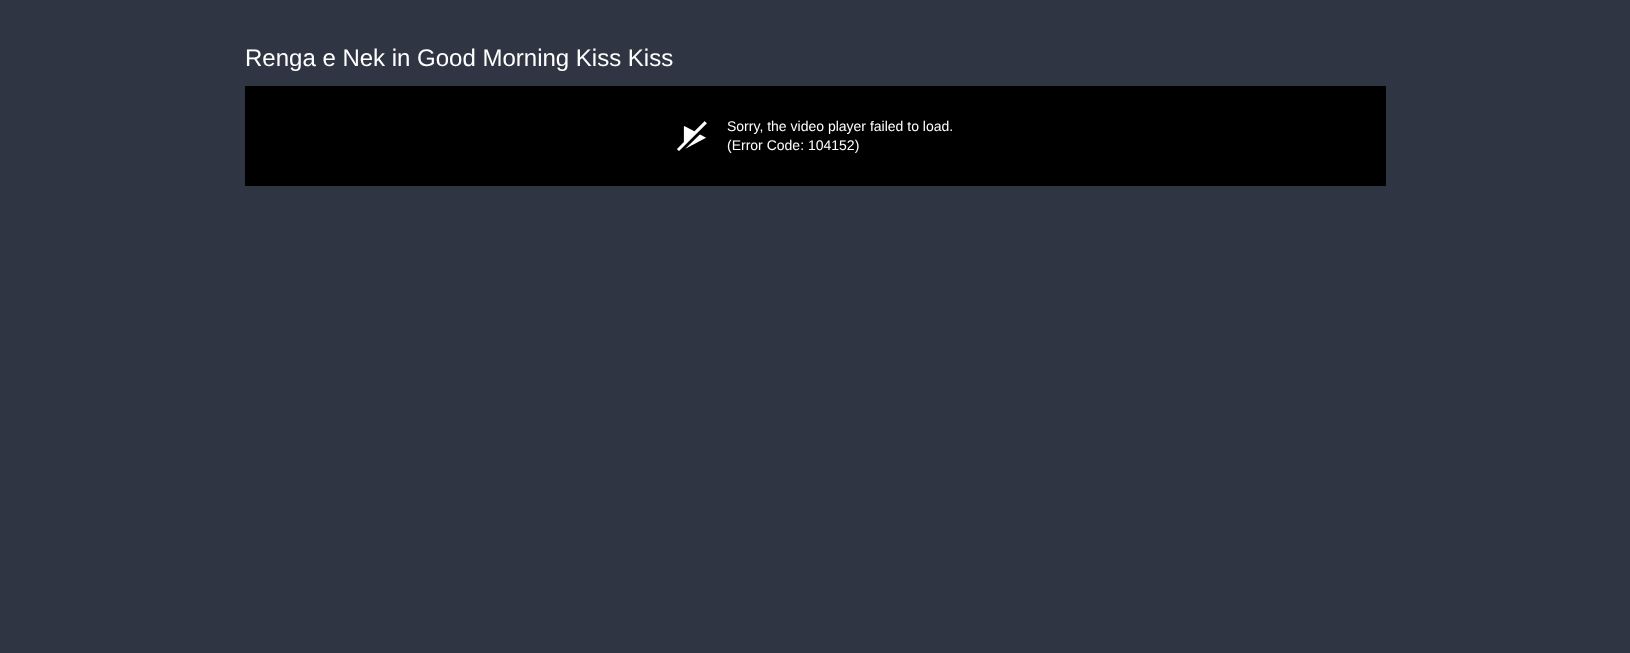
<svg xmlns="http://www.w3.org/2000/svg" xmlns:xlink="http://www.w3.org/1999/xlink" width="1630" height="653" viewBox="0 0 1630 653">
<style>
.cls-1{font:24px Liberation Sans;fill:#ffffff}
.cls-2{font:14px Liberation Sans;fill:#ffffff}
</style>
<rect width="100%" height="100%" fill="#2f3542"/>
<rect fill="#000000" x="245" y="86" width="1141" height="100"/>
<image xlink:href="image0.png" x="677" y="121" width="30" height="30"/>
<text class="cls-1" x="245" y="66">Renga e Nek in Good Morning Kiss Kiss</text>
<text class="cls-2"><tspan x="727" y="131">Sorry, the video player failed to load.</tspan><tspan x="727" y="150">(Error Code: 104152)</tspan></text>
</svg>
